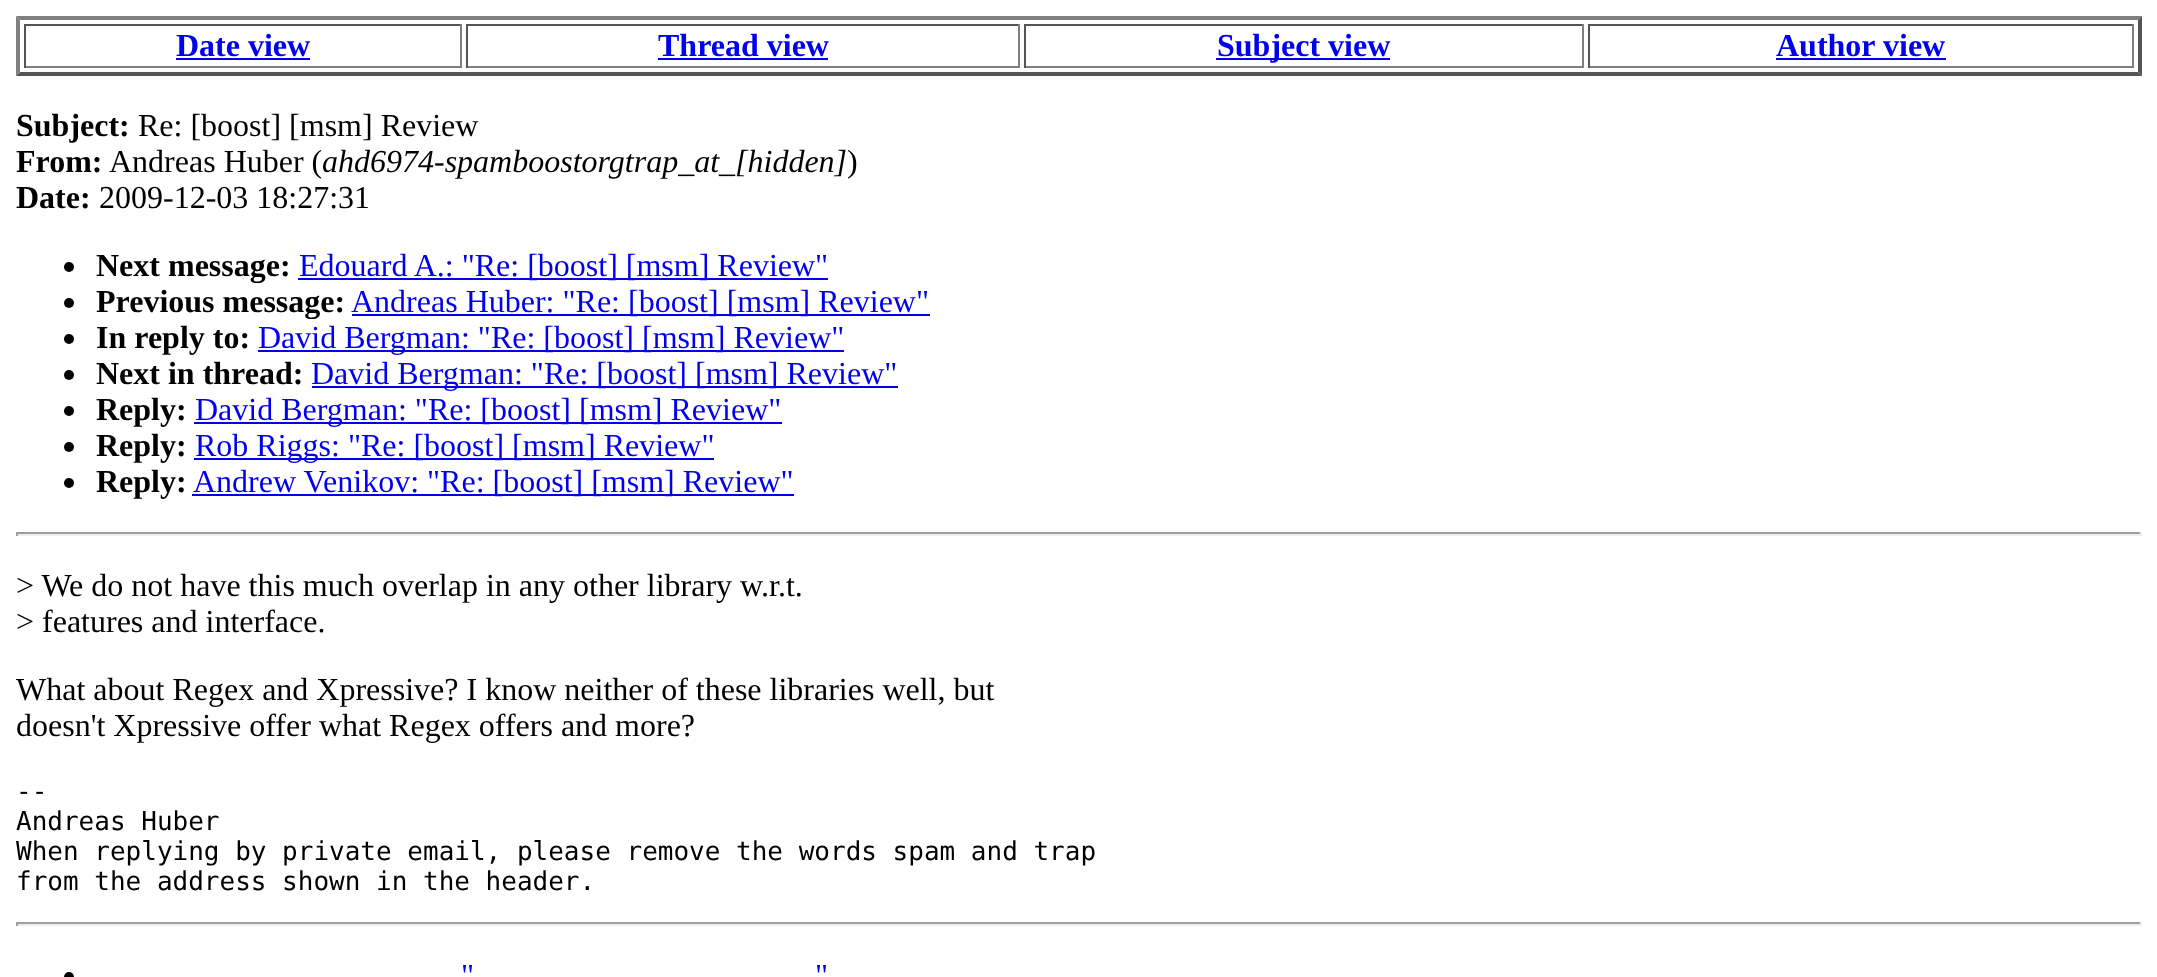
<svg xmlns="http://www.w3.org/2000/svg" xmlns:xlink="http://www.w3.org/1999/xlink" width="2157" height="977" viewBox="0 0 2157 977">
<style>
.cls-1{font:bold 32px Liberation Serif;fill:#0000ee}
.cls-2{font:bold 32px Liberation Serif;fill:#000000}
.cls-3{font:32px Liberation Serif;fill:#000000}
.cls-4{font:italic 32px Liberation Serif;fill:#000000}
.cls-5{font:32px Liberation Serif;fill:#0000ee}
.cls-6{font:26px DejaVu Sans Mono;fill:#000000}
</style>
<rect width="100%" height="100%" fill="#ffffff"/>
<path fill="#808080" d="M16 16H2142L2138 20H20Z"/>
<path fill="#555555" d="M2142 16V76L2138 72V20Z"/>
<path fill="#555555" d="M2142 76H16L20 72H2138Z"/>
<path fill="#808080" d="M16 76V16L20 20V72Z"/>
<rect fill="#555555" x="24" y="24" width="438" height="2"/>
<rect fill="#808080" x="460" y="24" width="2" height="44"/>
<rect fill="#808080" x="24" y="66" width="438" height="2"/>
<rect fill="#555555" x="24" y="24" width="2" height="44"/>
<rect fill="#0000ee" x="176" y="58" width="134" height="2"/>
<rect fill="#555555" x="466" y="24" width="554" height="2"/>
<rect fill="#808080" x="1018" y="24" width="2" height="44"/>
<rect fill="#808080" x="466" y="66" width="554" height="2"/>
<rect fill="#555555" x="466" y="24" width="2" height="44"/>
<rect fill="#0000ee" x="658" y="58" width="170" height="2"/>
<rect fill="#555555" x="1024" y="24" width="560" height="2"/>
<rect fill="#808080" x="1582" y="24" width="2" height="44"/>
<rect fill="#808080" x="1024" y="66" width="560" height="2"/>
<rect fill="#555555" x="1024" y="24" width="2" height="44"/>
<rect fill="#0000ee" x="1216" y="58" width="174" height="2"/>
<rect fill="#555555" x="1588" y="24" width="546" height="2"/>
<rect fill="#808080" x="2132" y="24" width="2" height="44"/>
<rect fill="#808080" x="1588" y="66" width="546" height="2"/>
<rect fill="#555555" x="1588" y="24" width="2" height="44"/>
<rect fill="#0000ee" x="1776" y="58" width="170" height="2"/>
<circle fill="#000000" cx="69" cy="267" r="5"/>
<rect fill="#0000ee" x="298" y="278" width="530" height="2"/>
<circle fill="#000000" cx="69" cy="303" r="5"/>
<rect fill="#0000ee" x="352" y="314" width="578" height="2"/>
<circle fill="#000000" cx="69" cy="339" r="5"/>
<rect fill="#0000ee" x="258" y="350" width="586" height="2"/>
<circle fill="#000000" cx="69" cy="375" r="5"/>
<rect fill="#0000ee" x="312" y="386" width="586" height="2"/>
<circle fill="#000000" cx="69" cy="411" r="5"/>
<rect fill="#0000ee" x="194" y="422" width="588" height="2"/>
<circle fill="#000000" cx="69" cy="447" r="5"/>
<rect fill="#0000ee" x="194" y="458" width="520" height="2"/>
<circle fill="#000000" cx="69" cy="483" r="5"/>
<rect fill="#0000ee" x="192" y="494" width="602" height="2"/>
<rect fill="#9f9f9f" x="16" y="532" width="2126" height="2"/>
<rect fill="#eeeeee" x="2140" y="532" width="2" height="4"/>
<rect fill="#eeeeee" x="16" y="534" width="2126" height="2"/>
<rect fill="#9f9f9f" x="16" y="532" width="2" height="4"/>
<rect fill="#9f9f9f" x="16" y="922" width="2126" height="2"/>
<rect fill="#eeeeee" x="2140" y="922" width="2" height="4"/>
<rect fill="#eeeeee" x="16" y="924" width="2126" height="2"/>
<rect fill="#9f9f9f" x="16" y="922" width="2" height="4"/>
<circle fill="#000000" cx="69" cy="977" r="5"/>
<text class="cls-1" x="176" y="56">Date view</text>
<text class="cls-1" x="658" y="56">Thread view</text>
<text class="cls-1" x="1217" y="56">Subject view</text>
<text class="cls-1" x="1776" y="56">Author view</text>
<text class="cls-2" x="16" y="136">Subject:</text>
<text class="cls-3" x="138" y="136">Re: [boost] [msm] Review</text>
<text class="cls-2" x="16" y="172">From:</text>
<text class="cls-3" x="109" y="172">Andreas Huber (</text>
<text class="cls-4" x="322" y="172">ahd6974-spamboostorgtrap_at_[hidden]</text>
<text class="cls-3" x="847" y="172">)</text>
<text class="cls-2" x="16" y="208">Date:</text>
<text class="cls-3" x="99" y="208">2009-12-03 18:27:31</text>
<text class="cls-2" x="96" y="276">Next message:</text>
<text class="cls-5" x="299" y="276">Edouard A.: "Re: [boost] [msm] Review"</text>
<text class="cls-2" x="96" y="312">Previous message:</text>
<text class="cls-5" x="351" y="312">Andreas Huber: "Re: [boost] [msm] Review"</text>
<text class="cls-2" x="96" y="348">In reply to:</text>
<text class="cls-5" x="258" y="348">David Bergman: "Re: [boost] [msm] Review"</text>
<text class="cls-2" x="96" y="384">Next in thread:</text>
<text class="cls-5" x="311" y="384">David Bergman: "Re: [boost] [msm] Review"</text>
<text class="cls-2" x="96" y="420">Reply:</text>
<text class="cls-5" x="195" y="420">David Bergman: "Re: [boost] [msm] Review"</text>
<text class="cls-2" x="96" y="456">Reply:</text>
<text class="cls-5" x="195" y="456">Rob Riggs: "Re: [boost] [msm] Review"</text>
<text class="cls-2" x="96" y="492">Reply:</text>
<text class="cls-5" x="193" y="492">Andrew Venikov: "Re: [boost] [msm] Review"</text>
<text class="cls-3"><tspan x="16" y="596">&gt; We do not have this much overlap in any other library w.r.t.</tspan><tspan x="16" y="632">&gt; features and interface.</tspan></text>
<text class="cls-3"><tspan x="16" y="700">What about Regex and Xpressive? I know neither of these libraries well, but</tspan><tspan x="16" y="736">doesn't Xpressive offer what Regex offers and more?</tspan></text>
<text class="cls-6"><tspan x="16" y="800">--</tspan><tspan x="16" y="830">Andreas Huber</tspan><tspan x="16" y="860">When replying by private email, please remove the words spam and trap</tspan><tspan x="16" y="890">from the address shown in the header.</tspan></text>
<text class="cls-5" x="461" y="986">"</text>
<text class="cls-5" x="815" y="986">"</text>
</svg>
